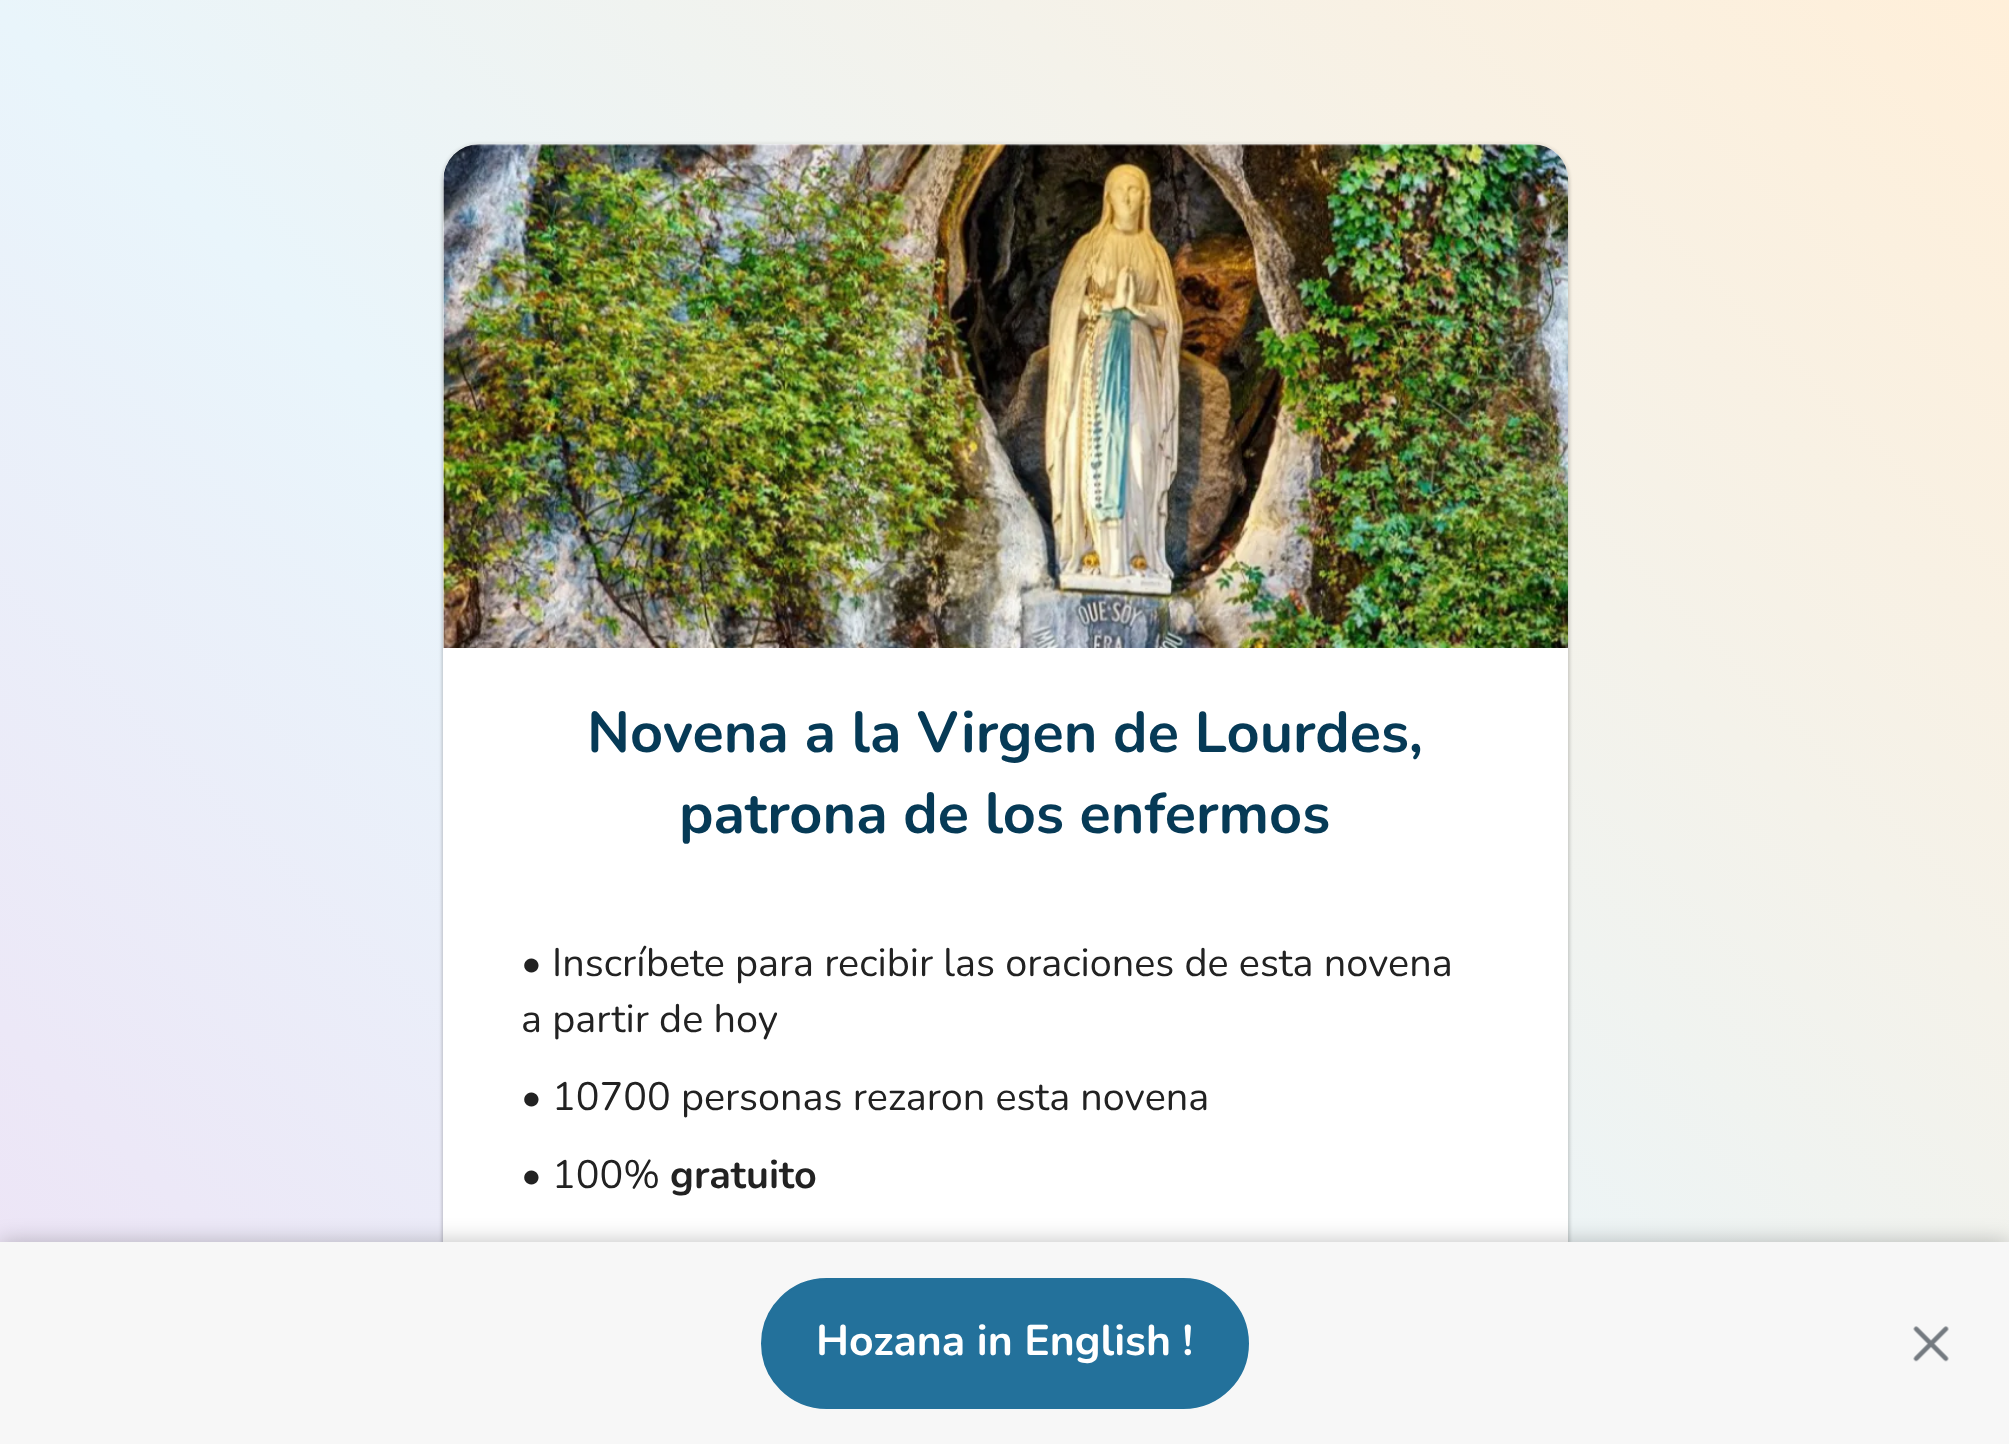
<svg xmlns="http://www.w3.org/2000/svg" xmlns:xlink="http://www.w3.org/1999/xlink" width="2009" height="1444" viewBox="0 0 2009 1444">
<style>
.cls-1{font:bold 57.6px Nunito;fill:#063a56}
.cls-2{font:bold 39.6px Nunito;fill:#222222}
.cls-3{font:39.6px Nunito;fill:#222222}
.cls-4{font:bold 42.75px Nunito;fill:#ffffff}
</style>
<defs>
<linearGradient id="g1" gradientUnits="userSpaceOnUse" x1="-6.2" y1="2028" x2="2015" y2="6.2"><stop offset="0" stop-color="#efdbf3"/><stop offset="0.5" stop-color="#e9f5fb"/><stop offset="1" stop-color="#ffefd9"/></linearGradient>
</defs>
<rect width="100%" height="100%" fill="#ffffff"/>
<rect fill="url(#g1)" x="0" y="0" width="2009" height="1242"/>
<rect fill="#000000" fill-opacity="0.05" filter="blur(1px)" x="441" y="142" width="1130" height="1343" rx="38"/>
<rect fill="#000000" fill-opacity="0.2" filter="blur(2px)" x="443" y="149" width="1125" height="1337" rx="36"/>
<rect fill="#ffffff" x="443" y="144" width="1125" height="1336" rx="36"/>
<path fill="#ffffff" d="M479 144H1532C1552 144 1568 160 1568 180V648H443V180C443 160 459 144 479 144Z"/>
<image xlink:href="image0.png" x="443" y="144" width="1125" height="504"/>
<rect fill="#000000" fill-opacity="0.25" filter="blur(11px)" x="0" y="1242" width="2009" height="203"/>
<rect fill="#f7f7f7" x="0" y="1242" width="2009" height="202"/>
<rect fill="#23719b" stroke="#23719b" stroke-width="2" x="762" y="1279" width="486" height="129" rx="64.5"/>
<image xlink:href="image1.png" x="1913" y="1326" width="36" height="36"/>
<text class="cls-1" x="587" y="752">Novena a la Virgen de Lourdes,</text>
<text class="cls-1" x="679" y="833">patrona de los enfermos</text>
<text class="cls-2" x="521" y="976">•</text>
<text class="cls-3" x="552" y="976">Inscríbete para recibir las oraciones de esta novena</text>
<text class="cls-3" x="521" y="1032">a partir de hoy</text>
<text class="cls-2" x="521" y="1110">•</text>
<text class="cls-3" x="552" y="1110">10700 personas rezaron esta novena</text>
<text class="cls-2" x="521" y="1188">•</text>
<text class="cls-3" x="552" y="1188">100%</text>
<text class="cls-2" x="670" y="1188">gratuito</text>
<text class="cls-4" x="816" y="1355">Hozana in English !</text>
</svg>
